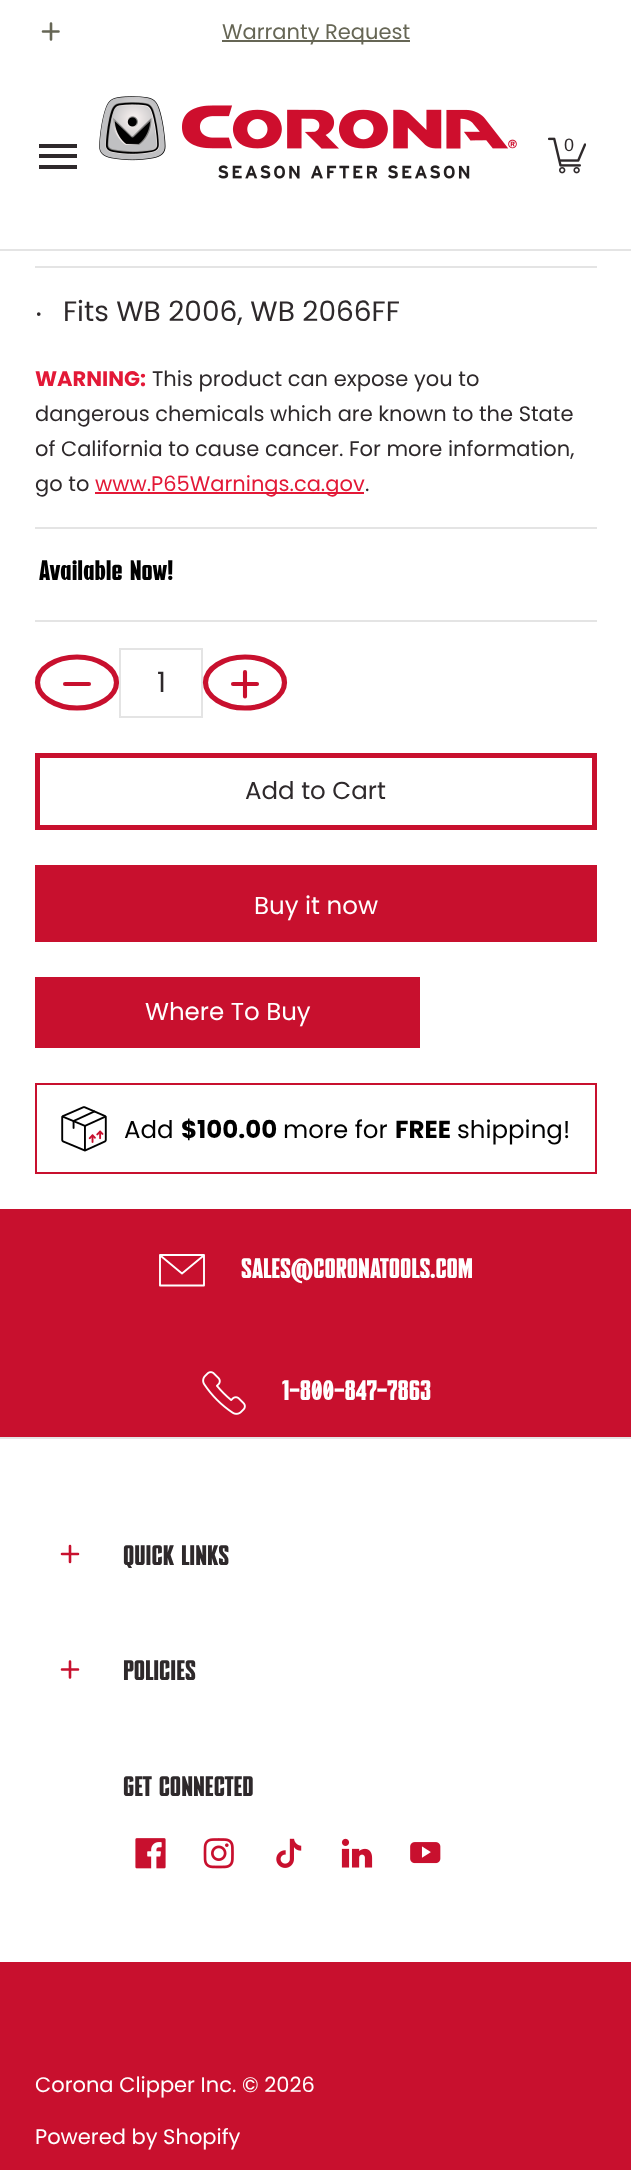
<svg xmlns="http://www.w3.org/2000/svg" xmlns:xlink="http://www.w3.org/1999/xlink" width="631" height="2170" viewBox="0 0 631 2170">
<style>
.cls-1{font:21px Poppins;fill:#666655}
.cls-2{font:18px Liberation Sans;fill:#2e292b}
.cls-3{font:28px Noto Sans;fill:#2e292b}
.cls-4{font:28px Poppins;fill:#2e292b}
.cls-5{font:bold 21px Poppins;fill:#e31937}
.cls-6{font:21px Poppins;fill:#2e292b}
.cls-7{font:21px Poppins;fill:#e31937}
.cls-8{font:bold 28.25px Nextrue;fill:#000000}
.cls-9{font:24.5px Poppins;fill:#2e292b}
.cls-10{font:24.5px Poppins;fill:#ffffff}
.cls-11{font:24.5px Poppins;fill:#000000}
.cls-12{font:bold 24.5px Poppins;fill:#000000}
.cls-13{font:bold 28.25px Nextrue;fill:#ffffff}
.cls-14{font:bold 28.25px Nextrue;fill:#2e292b}
.cls-15{font:21px Poppins;fill:#ffffff}
</style>
<rect width="100%" height="100%" fill="#ffffff"/>
<path fill="none" stroke="#666655" stroke-width="2.6" stroke-linecap="round" stroke-linejoin="round" d="M51 23.5V39.5M58.5 31.5H43"/>
<rect fill="#666655" x="222" y="40" width="188" height="2"/>
<rect fill="#e4e4e4" x="0" y="249" width="631" height="2"/>
<rect fill="#2e292b" x="39" y="144" width="38" height="4"/>
<rect fill="#2e292b" x="39" y="165" width="38" height="4"/>
<rect fill="#2e292b" x="39" y="154" width="38" height="4"/>
<image xlink:href="image0.png" x="99" y="96" width="418" height="83"/>
<image xlink:href="image1.png" x="548" y="137" width="38" height="37"/>
<rect fill="#e4e4e4" x="35" y="266" width="562" height="2"/>
<rect fill="#e4e4e4" x="35" y="527" width="562" height="2"/>
<rect fill="#e31937" x="95" y="492" width="269" height="2"/>
<rect fill="#e4e4e4" x="35" y="620" width="562" height="2"/>
<path fill="none" stroke="#c8102e" stroke-width="5.2" d="M77 657C98.5 657 116.5 668.5 116.5 682.5C116.5 696.5 98.5 708 77 708C55.5 708 37.5 696.5 37.5 682.5C37.5 668.5 55.5 657 77 657Z"/>
<path fill="none" stroke="#c8102e" stroke-width="4.1" stroke-linecap="round" stroke-linejoin="round" d="M89 684H65"/>
<rect fill="none" stroke="#e4e4e4" stroke-width="2" x="120" y="649" width="82" height="68"/>
<path fill="none" stroke="#c8102e" stroke-width="5.2" d="M245 657C266.5 657 284.5 668.5 284.5 682.5C284.5 696.5 266.5 708 245 708C223.5 708 205.5 696.5 205.5 682.5C205.5 668.5 223.5 657 245 657Z"/>
<path fill="none" stroke="#c8102e" stroke-width="4.1" stroke-linecap="round" stroke-linejoin="round" d="M245 672V696.5M257 684H233"/>
<rect fill="none" stroke="#c8102e" stroke-width="5" x="37.5" y="755.5" width="557" height="72"/>
<rect fill="#c8102e" x="35" y="865" width="562" height="77"/>
<rect fill="#c8102e" x="35" y="977" width="385" height="71"/>
<rect fill="none" stroke="#c8102e" stroke-width="2" x="36" y="1084" width="560" height="89"/>
<image xlink:href="image2.png" x="61" y="1106" width="46" height="46"/>
<rect fill="#c8102e" x="0" y="1209" width="631" height="228"/>
<rect fill="#e4e4e4" x="0" y="1437" width="631" height="2"/>
<path fill="none" stroke="#ffffff" stroke-width="1.9" stroke-linecap="round" stroke-linejoin="round" d="M160 1255H204V1285.5H160ZM202.5 1256.5L182 1273.5L161.5 1256.5"/>
<image xlink:href="image3.png" x="202" y="1371" width="44" height="44"/>
<path fill="none" stroke="#c8102e" stroke-width="2.6" stroke-linecap="round" stroke-linejoin="round" d="M70 1546V1562M78 1554H62"/>
<path fill="none" stroke="#c8102e" stroke-width="2.6" stroke-linecap="round" stroke-linejoin="round" d="M70 1661.5V1677.5M78 1669.5H62"/>
<image xlink:href="image4.png" x="135" y="1838" width="31" height="31"/>
<image xlink:href="image5.png" x="203" y="1838" width="31" height="31"/>
<image xlink:href="image6.png" x="276" y="1838" width="26" height="30"/>
<image xlink:href="image7.png" x="341" y="1838" width="32" height="30"/>
<image xlink:href="image8.png" x="410" y="1842" width="31" height="22"/>
<rect fill="#c8102e" x="0" y="1962" width="631" height="208"/>
<text class="cls-1" x="222" y="39">Warranty Request</text>
<text class="cls-2" x="564" y="151">0</text>
<text class="cls-3" x="35" y="321">‧</text>
<text class="cls-4" x="63" y="321">Fits WB 2006, WB 2066FF</text>
<text class="cls-5" x="35" y="386">WARNING:</text>
<text class="cls-6" x="152" y="386">This product can expose you to</text>
<text class="cls-6"><tspan x="35" y="421">dangerous chemicals which are known to the State</tspan><tspan x="35" y="456">of California to cause cancer. For more information,</tspan><tspan x="35" y="491">go to</tspan></text>
<text class="cls-7" x="95" y="491">www.P65Warnings.ca.gov</text>
<text class="cls-6" x="365" y="491">.</text>
<text class="cls-8" x="39" y="580">Available Now!</text>
<text class="cls-4" x="157" y="692">1</text>
<text class="cls-9" x="245" y="799">Add to Cart</text>
<text class="cls-10" x="254" y="914">Buy it now</text>
<text class="cls-10" x="145" y="1020">Where To Buy</text>
<text class="cls-11" x="124" y="1138">Add</text>
<text class="cls-12" x="181" y="1138">$100.00</text>
<text class="cls-11" x="283" y="1138">more for</text>
<text class="cls-12" x="395" y="1138">FREE</text>
<text class="cls-11" x="457" y="1138">shipping!</text>
<text class="cls-13" x="241" y="1278">SALES@CORONATOOLS.COM</text>
<text class="cls-13" x="282" y="1400">1-800-847-7863</text>
<text class="cls-14" x="123" y="1565">QUICK LINKS</text>
<text class="cls-14" x="123" y="1680">POLICIES</text>
<text class="cls-14" x="123" y="1796">GET CONNECTED</text>
<text class="cls-15" x="35" y="2092">Corona Clipper Inc. © 2026</text>
<text class="cls-15" x="35" y="2144">Powered by Shopify</text>
</svg>
